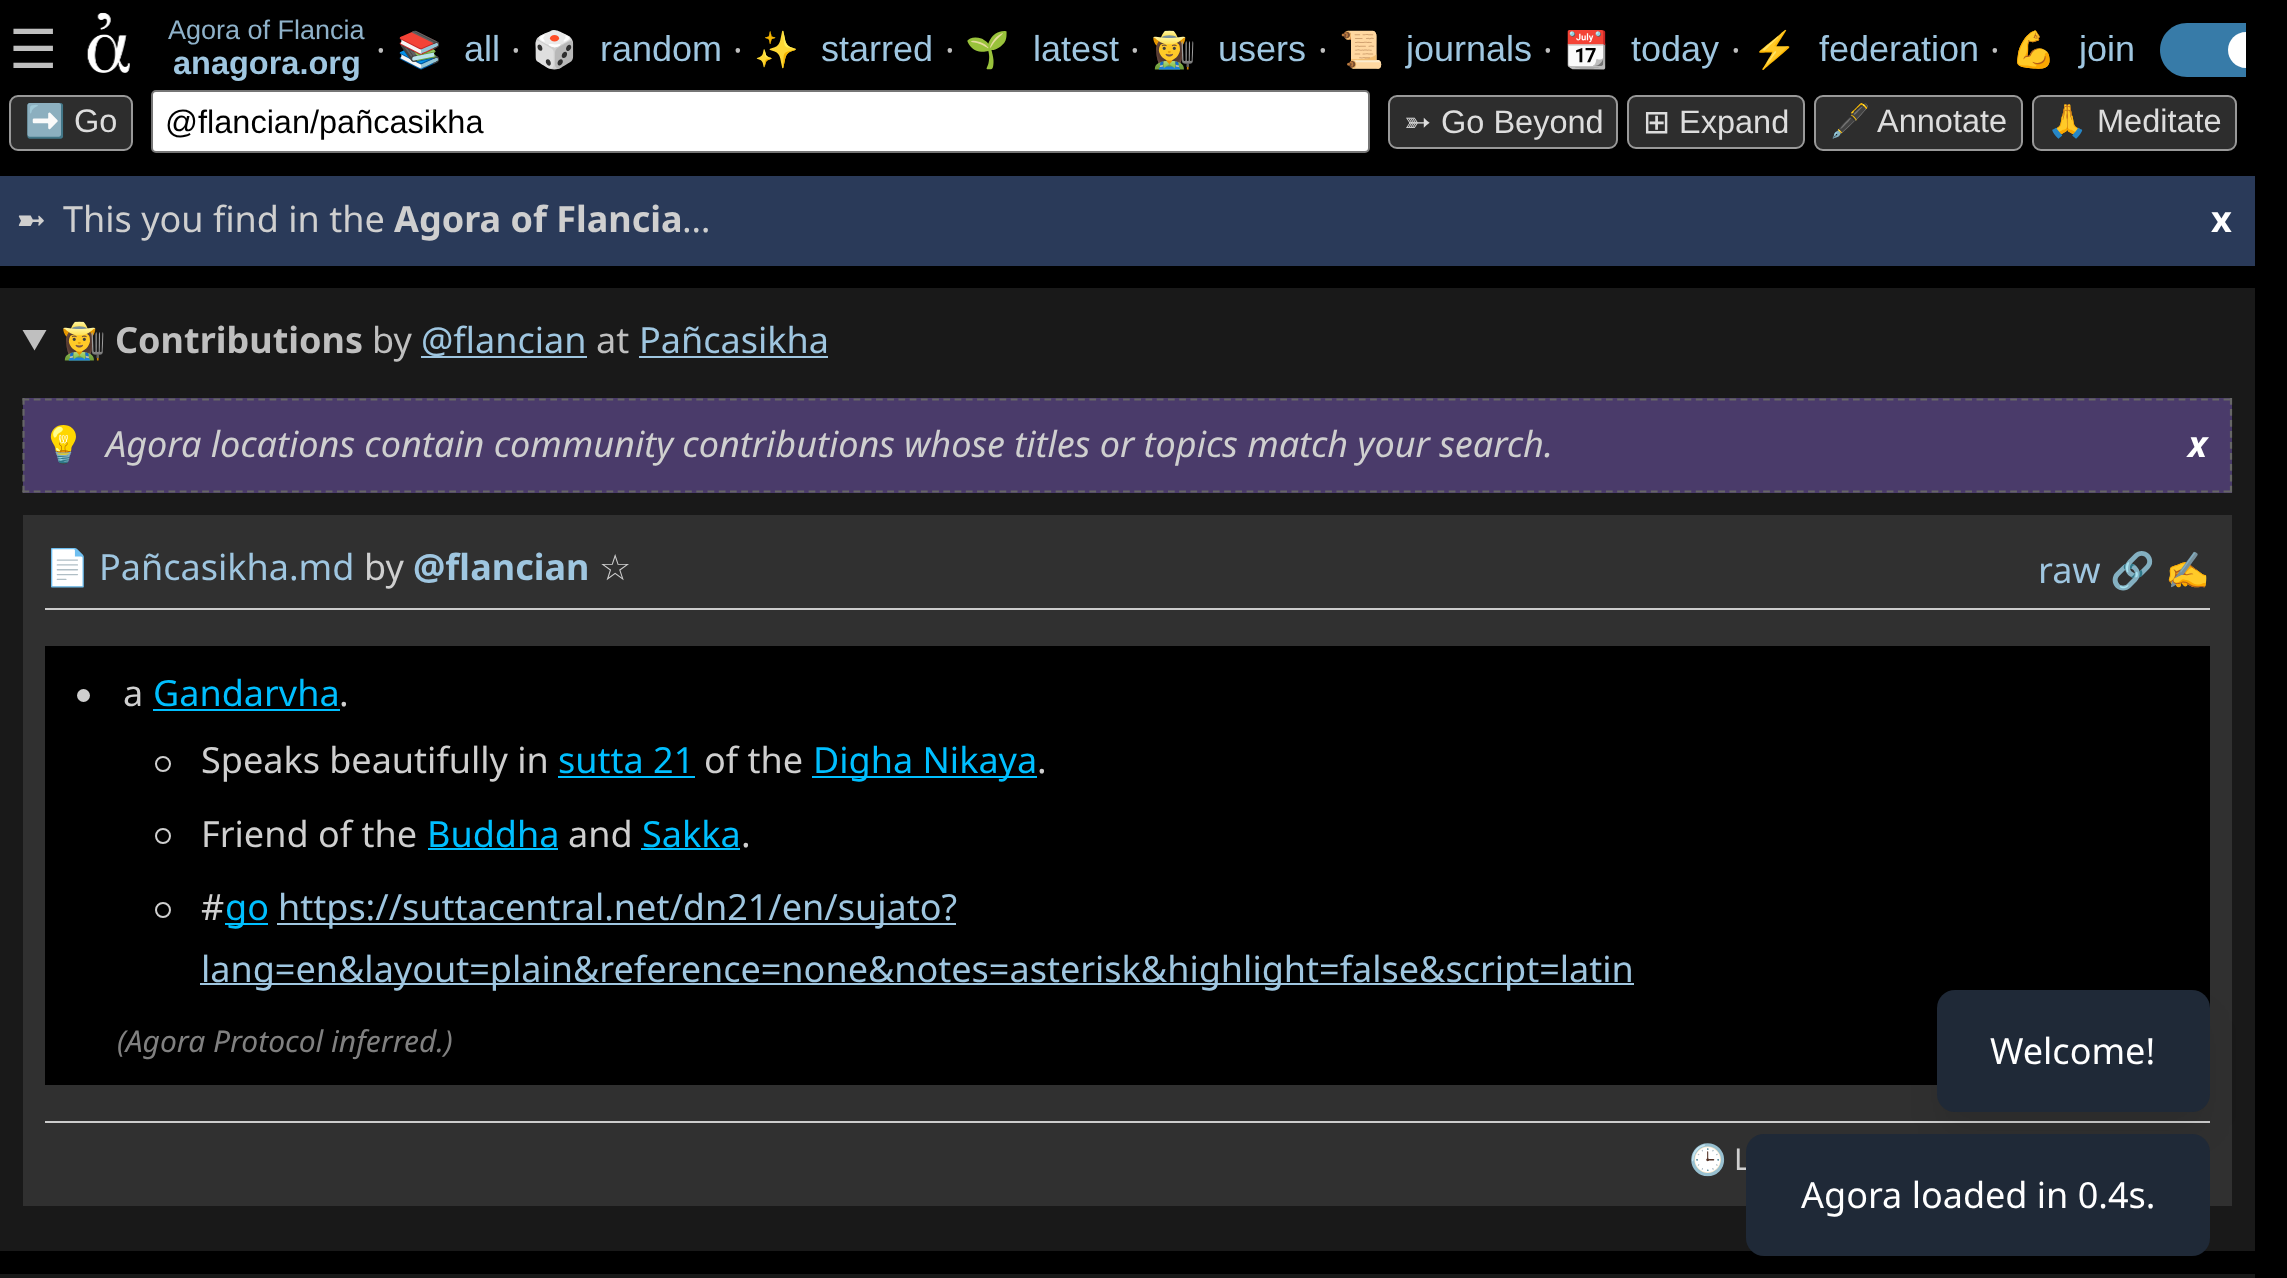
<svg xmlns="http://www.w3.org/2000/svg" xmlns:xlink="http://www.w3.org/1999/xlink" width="2287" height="1278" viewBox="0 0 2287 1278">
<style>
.cls-1{font:54px DejaVu Sans;fill:#bfbfbf}
.cls-2{font:27px Liberation Sans;fill:#8fb2ca}
.cls-3{font:bold 32.5px Liberation Sans;fill:#9fc6e0}
.cls-4{font:36px Noto Sans;fill:#bfbfbf}
.cls-5{font:36px Noto Color Emoji;fill:#9fc6e0}
.cls-6{font:36px Liberation Sans;fill:#9fc6e0}
.cls-7{font:32.5px Noto Color Emoji;fill:#dddddd}
.cls-8{font:32.5px Liberation Sans;fill:#dddddd}
.cls-9{font:32.5px Liberation Sans;fill:#000000}
.cls-10{font:32.5px DejaVu Sans;fill:#dddddd}
.cls-11{font:36px DejaVu Sans;fill:#cfcfcf}
.cls-12{font:36px Noto Sans;fill:#cfcfcf}
.cls-13{font:bold 36px Noto Sans;fill:#cfcfcf}
.cls-14{font:bold 36px Noto Sans;fill:#ffffff}
.cls-15{font:bold 36px Noto Color Emoji;fill:#bfbfbf}
.cls-16{font:bold 36px Noto Sans;fill:#bfbfbf}
.cls-17{font:36px Noto Sans;fill:#9fc6e0}
.cls-18{font:36px Noto Color Emoji;fill:#cfcfcf}
.cls-19{font:italic 36px Noto Sans;fill:#cfcfcf}
.cls-20{font:italic bold 36px Noto Sans;fill:#ffffff}
.cls-21{font:bold 36px Noto Sans;fill:#9fc6e0}
.cls-22{font:36px Noto Sans;fill:#00bfff}
.cls-23{font:italic 30px Noto Sans;fill:#808080}
.cls-24{font:30px Noto Color Emoji;fill:#cfcfcf}
.cls-25{font:30px Noto Sans;fill:#cfcfcf}
.cls-26{font:36px Noto Sans;fill:#ffffff}
</style>
<rect width="100%" height="100%" fill="#000000"/>
<image xlink:href="image0.png" x="87" y="12" width="43" height="61"/>
<path fill="#377ba8" d="M2187 23H2246V77H2187C2172 77 2160 65 2160 50C2160 35 2172 23 2187 23Z"/>
<path fill="#ffffff" d="M2246 32V68C2236 68 2228 60 2228 50C2228 40 2236 32 2246 32Z"/>
<rect fill="#2d2d2d" stroke="#999999" stroke-width="2" x="10" y="96" width="122" height="54" rx="8"/>
<rect fill="#ffffff" stroke="#767676" stroke-width="2" x="152" y="91" width="1217" height="61" rx="4"/>
<rect fill="#2d2d2d" stroke="#999999" stroke-width="2" x="1389" y="96" width="228" height="52" rx="8"/>
<rect fill="#2d2d2d" stroke="#999999" stroke-width="2" x="1628" y="96" width="176" height="52" rx="8"/>
<rect fill="#2d2d2d" stroke="#999999" stroke-width="2" x="1815" y="96" width="207" height="54" rx="8"/>
<rect fill="#2d2d2d" stroke="#999999" stroke-width="2" x="2033" y="96" width="203" height="54" rx="8"/>
<rect fill="#2a3a59" x="0" y="176" width="2255" height="90"/>
<rect fill="#191919" x="0" y="288" width="2255" height="963"/>
<path fill="#bfbfbf" d="M22.5 330H46.5L34.5 350.5Z"/>
<rect fill="#9fc6e0" x="421" y="356" width="166" height="2"/>
<rect fill="#9fc6e0" x="639" y="356" width="189" height="2"/>
<rect fill="#4a3b6a" x="23" y="398" width="2209" height="95"/>
<path fill="none" stroke="#666666" stroke-width="2.2" stroke-dasharray="6.75 4.48" d="M22.5 399.5H2232"/>
<path fill="none" stroke="#666666" stroke-width="2.2" stroke-dasharray="6.75 4.23" d="M2231 398V493"/>
<path fill="none" stroke="#666666" stroke-width="2.2" stroke-dasharray="6.75 4.48" d="M22.5 491.5H2232"/>
<path fill="none" stroke="#666666" stroke-width="2.2" stroke-dasharray="6.75 4.23" d="M23.5 398V493"/>
<rect fill="#303030" x="23" y="515" width="2209" height="691"/>
<rect fill="#cccccc" x="45" y="608" width="2165" height="2"/>
<rect fill="#000000" x="45" y="646" width="2165" height="439"/>
<circle fill="#cfcfcf" cx="83.5" cy="695.5" r="6.5"/>
<rect fill="#00bfff" x="153" y="709" width="187" height="2"/>
<circle fill="none" stroke="#cfcfcf" stroke-width="2" cx="163" cy="764" r="7"/>
<rect fill="#00bfff" x="558" y="776" width="137" height="2"/>
<rect fill="#00bfff" x="812" y="776" width="225" height="2"/>
<circle fill="none" stroke="#cfcfcf" stroke-width="2" cx="163" cy="836" r="7"/>
<rect fill="#00bfff" x="428" y="848" width="130" height="2"/>
<rect fill="#00bfff" x="641" y="848" width="99" height="2"/>
<circle fill="none" stroke="#cfcfcf" stroke-width="2" cx="163" cy="910" r="7"/>
<rect fill="#00bfff" x="225" y="923" width="43" height="2"/>
<rect fill="#9fc6e0" x="277" y="923" width="679" height="2"/>
<rect fill="#9fc6e0" x="200" y="983" width="1434" height="2"/>
<rect fill="#cccccc" x="45" y="1121" width="2165" height="2"/>
<rect fill="#191919" x="0" y="1274" width="2255" height="4"/>
<rect fill="#000000" fill-opacity="0.1" filter="blur(17px)" x="1944" y="1019" width="259" height="108" rx="11"/>
<rect fill="#1f2937" x="1937" y="990" width="273" height="122" rx="18"/>
<text class="cls-1" x="9" y="68">☰</text>
<text class="cls-2" x="168" y="39">Agora of Flancia</text>
<text class="cls-3" x="173" y="74">anagora.org</text>
<text class="cls-4" x="376" y="63">⸱</text>
<text class="cls-5" x="397" y="62">📚</text>
<text class="cls-6" x="464" y="61">all</text>
<text class="cls-4" x="511" y="63">⸱</text>
<text class="cls-5" x="532" y="62">🎲️</text>
<text class="cls-6" x="600" y="61">random</text>
<text class="cls-4" x="733" y="63">⸱</text>
<text class="cls-5" x="754" y="62">✨</text>
<text class="cls-6" x="821" y="61">starred</text>
<text class="cls-4" x="945" y="63">⸱</text>
<text class="cls-5" x="965" y="62">🌱</text>
<text class="cls-6" x="1033" y="61">latest</text>
<text class="cls-4" x="1130" y="63">⸱</text>
<text class="cls-5" x="1151" y="62">👩‍🌾</text>
<text class="cls-6" x="1218" y="61">users</text>
<text class="cls-4" x="1318" y="63">⸱</text>
<text class="cls-5" x="1339" y="62">📜</text>
<text class="cls-6" x="1406" y="61">journals</text>
<text class="cls-4" x="1543" y="63">⸱</text>
<text class="cls-5" x="1564" y="62">📆</text>
<text class="cls-6" x="1631" y="61">today</text>
<text class="cls-4" x="1731" y="63">⸱</text>
<text class="cls-5" x="1752" y="62">⚡</text>
<text class="cls-6" x="1819" y="61">federation</text>
<text class="cls-4" x="1990" y="63">⸱</text>
<text class="cls-5" x="2011" y="62">💪</text>
<text class="cls-6" x="2079" y="61">join</text>
<text class="cls-7" x="25" y="132">➡️</text>
<text class="cls-8" x="74" y="132">Go</text>
<text class="cls-9" x="165" y="133">@flancian/pañcasikha</text>
<text class="cls-10" x="1404" y="133">➳</text>
<text class="cls-8" x="1441" y="133">Go Beyond</text>
<text class="cls-10" x="1643" y="133">⊞</text>
<text class="cls-8" x="1679" y="133">Expand</text>
<text class="cls-7" x="1830" y="132">🖋️</text>
<text class="cls-8" x="1877" y="132">Annotate</text>
<text class="cls-7" x="2047" y="132">🙏</text>
<text class="cls-8" x="2097" y="132">Meditate</text>
<text class="cls-11" x="16" y="232">➼</text>
<text class="cls-12" x="63" y="232">This you find in the</text>
<text class="cls-13" x="394" y="232">Agora of Flancia</text>
<text class="cls-12" x="682" y="232">…</text>
<text class="cls-14" x="2211" y="232">x</text>
<text class="cls-15" x="61" y="353">👩‍🌾</text>
<text class="cls-16" x="115" y="353">Contributions</text>
<text class="cls-4" x="372" y="353">by</text>
<text class="cls-17" x="421" y="353">@flancian</text>
<text class="cls-4" x="596" y="353">at</text>
<text class="cls-17" x="639" y="353">Pañcasikha</text>
<text class="cls-18" x="41" y="457">💡</text>
<text class="cls-19" x="106" y="457">Agora locations contain community contributions whose titles or topics match your search.</text>
<text class="cls-20" x="2188" y="457">x</text>
<text class="cls-5" x="45" y="580">📄</text>
<text class="cls-17" x="99" y="580">Pañcasikha.md</text>
<text class="cls-12" x="364" y="580">by</text>
<text class="cls-21" x="413" y="580">@flancian</text>
<text class="cls-11" x="599" y="580">☆</text>
<text class="cls-17" x="2038" y="583">raw</text>
<text class="cls-5" x="2110" y="583">️🔗</text>
<text class="cls-5" x="2165" y="583">✍️</text>
<text class="cls-12" x="123" y="706">a</text>
<text class="cls-22" x="153" y="706">Gandarvha</text>
<text class="cls-12" x="339" y="706">.</text>
<text class="cls-12" x="201" y="773">Speaks beautifully in</text>
<text class="cls-22" x="558" y="773">sutta 21</text>
<text class="cls-12" x="704" y="773">of the</text>
<text class="cls-22" x="813" y="773">Digha Nikaya</text>
<text class="cls-12" x="1037" y="773">.</text>
<text class="cls-12" x="201" y="847">Friend of the</text>
<text class="cls-22" x="427" y="847">Buddha</text>
<text class="cls-12" x="568" y="847">and</text>
<text class="cls-22" x="642" y="847">Sakka</text>
<text class="cls-12" x="741" y="847">.</text>
<text class="cls-12" x="201" y="920">#</text>
<text class="cls-22" x="225" y="920">go</text>
<text class="cls-17" x="278" y="920">https://suttacentral.net/dn21/en/sujato?</text>
<text class="cls-17" x="201" y="982">lang=en&amp;layout=plain&amp;reference=none&amp;notes=asterisk&amp;highlight=false&amp;script=latin</text>
<text class="cls-23" x="117" y="1052">(Agora Protocol inferred.)</text>
<text class="cls-24" x="1689" y="1170">🕒</text>
<text class="cls-25" x="1734" y="1170">L</text>
<text class="cls-26" x="1990" y="1064">Welcome!</text>
<rect fill="#1f2937" x="1746" y="1134" width="464" height="122" rx="18"/>
<text class="cls-26" x="1801" y="1208">Agora loaded in 0.4s.</text>
</svg>
